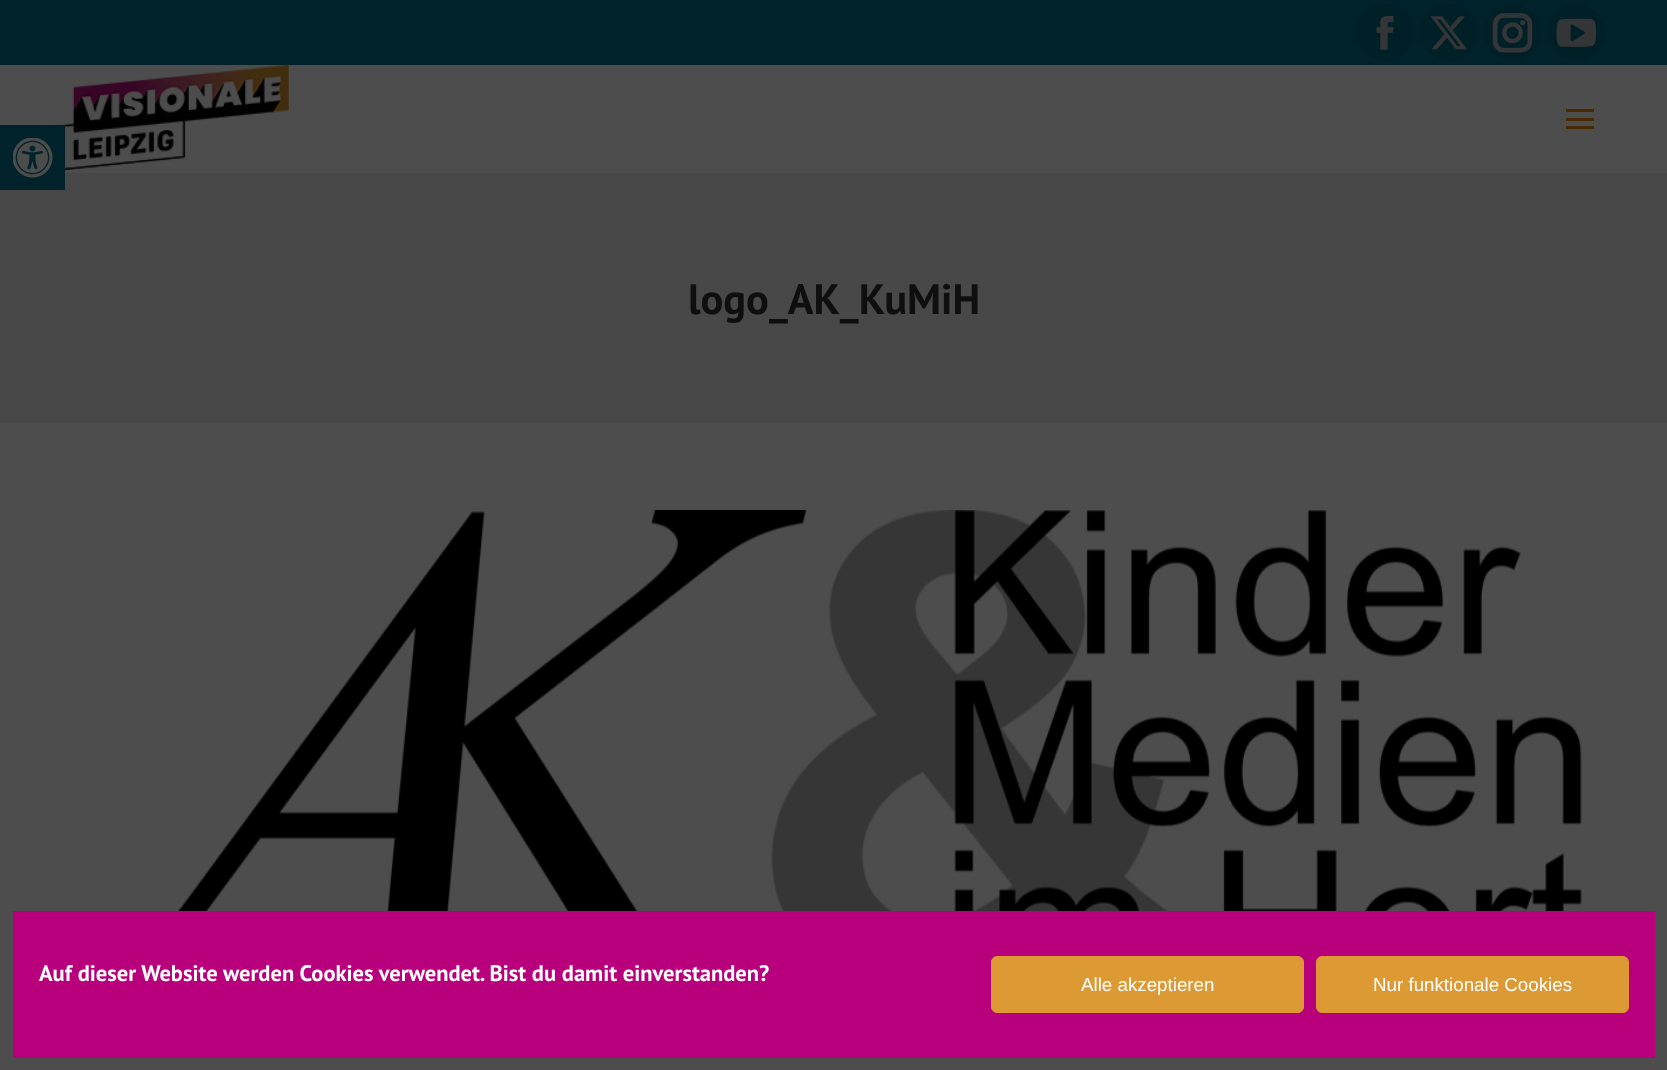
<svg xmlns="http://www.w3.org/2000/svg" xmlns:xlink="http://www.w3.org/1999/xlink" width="1667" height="1070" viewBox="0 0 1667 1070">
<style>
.cls-1{font:bold 42.5px PT Sans;fill:#0f0f0f}
.cls-2{font:bold 22.5px PT Sans;fill:#ffffff}
.cls-3{font:18.75px Liberation Sans;fill:#ffffff}
</style>
<rect width="100%" height="100%" fill="#4d4d4d"/>
<image xlink:href="image5.png" x="62" y="65" width="227" height="105"/>
<rect fill="#484848" x="0" y="173" width="1667" height="250"/>
<rect fill="#00232b" x="0" y="125" width="65" height="65"/>
<image xlink:href="image0.png" x="13" y="138" width="40" height="40"/>
<rect fill="#00232b" x="0" y="0" width="1667" height="64"/>
<rect fill="#002028" x="1356" y="4" width="58" height="57" rx="28.5"/>
<image xlink:href="image1.png" x="1376" y="15" width="18" height="35"/>
<rect fill="#002028" x="1420" y="4" width="58" height="57" rx="28.5"/>
<image xlink:href="image2.png" x="1430" y="16" width="37" height="34"/>
<circle fill="#002028" cx="1512.5" cy="32.5" r="28.5"/>
<image xlink:href="image3.png" x="1492" y="13" width="41" height="40"/>
<circle fill="#002028" cx="1576.5" cy="32.5" r="28.5"/>
<image xlink:href="image4.png" x="1556" y="18" width="40" height="29"/>
<rect fill="#022128" x="0" y="64" width="1667" height="1"/>
<rect fill="#482900" x="1566" y="109" width="28" height="3"/>
<rect fill="#482900" x="1566" y="118" width="28" height="3"/>
<rect fill="#482900" x="1566" y="126" width="28" height="3"/>
<image xlink:href="image6.png" x="177" y="510" width="1405" height="401"/>
<rect fill="#b8007d" x="13" y="911" width="1642" height="147"/>
<rect fill="#dd9933" stroke="#dd9933" x="991.5" y="956.5" width="312" height="56" rx="5.5"/>
<rect fill="#dd9933" stroke="#dd9933" x="1316.5" y="956.5" width="312" height="56" rx="5.5"/>
<text class="cls-1" x="688" y="314">logo_AK_KuMiH</text>
<text class="cls-2" x="39" y="981">Auf dieser Website werden Cookies verwendet. Bist du damit einverstanden?</text>
<text class="cls-3" x="1081" y="991">Alle akzeptieren</text>
<text class="cls-3" x="1373" y="991">Nur funktionale Cookies</text>
</svg>
